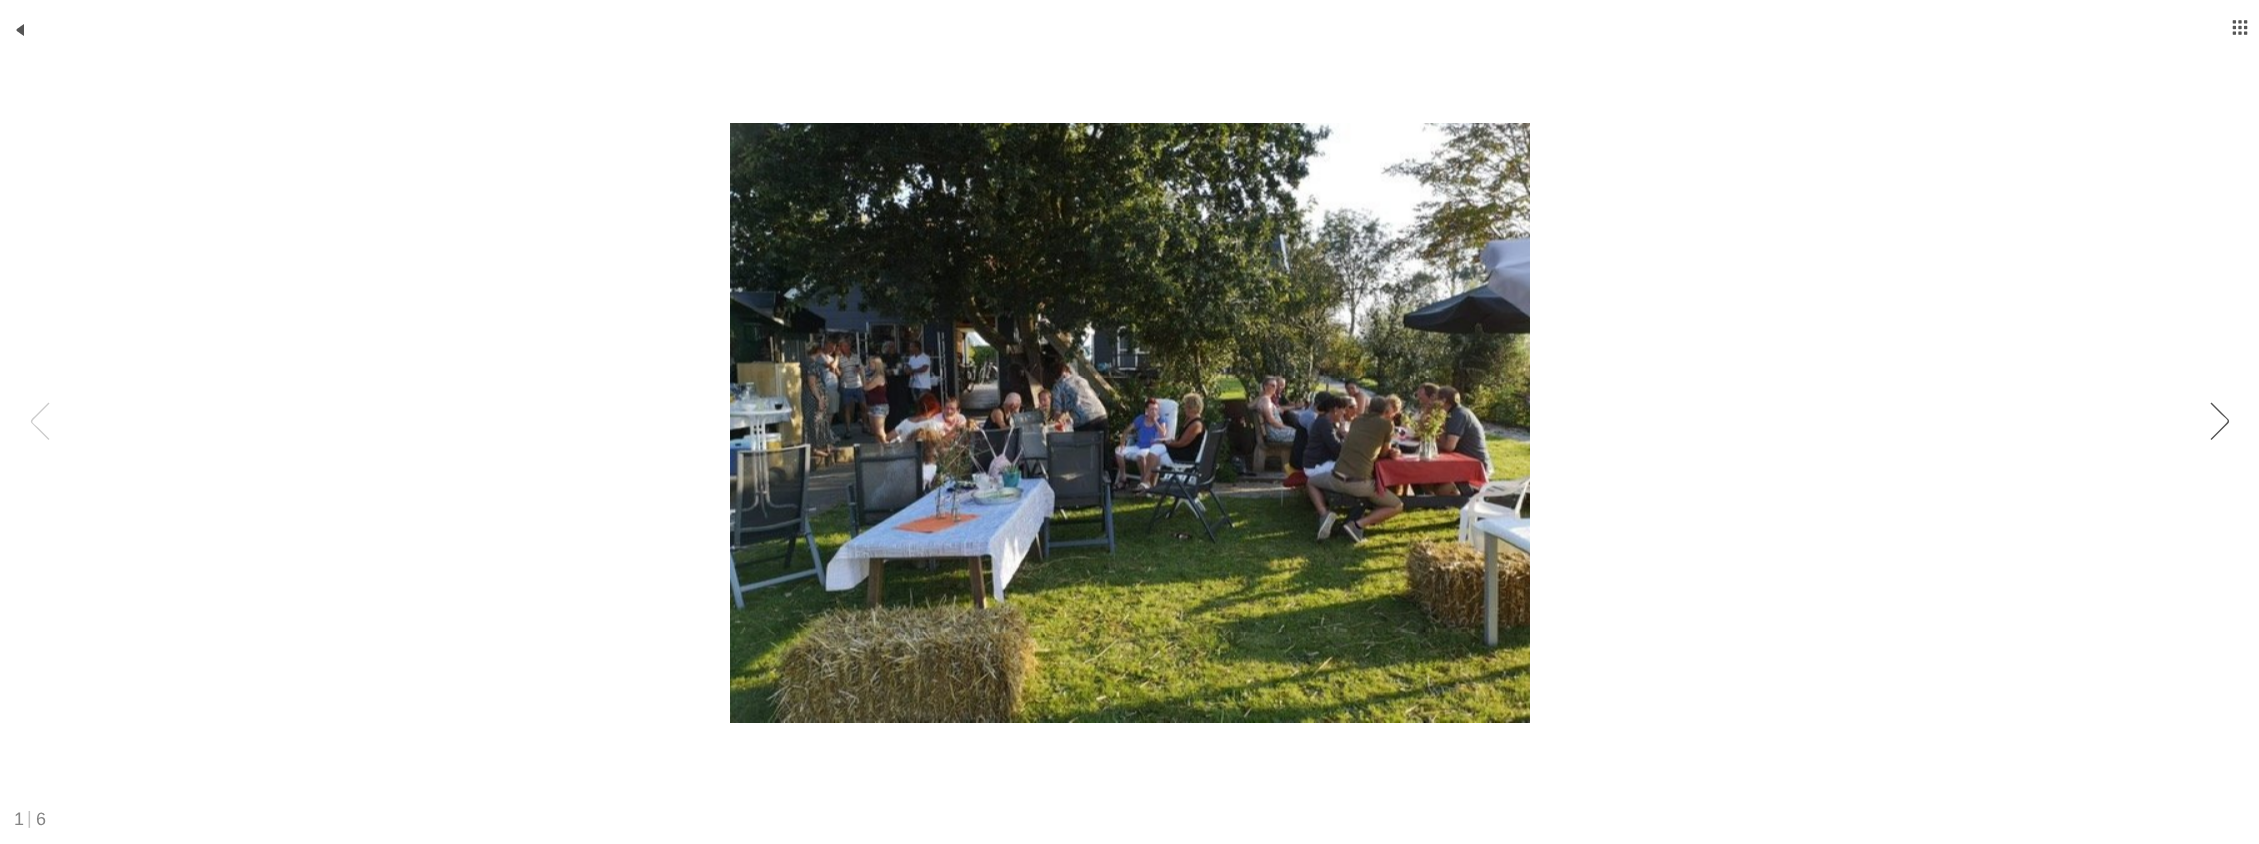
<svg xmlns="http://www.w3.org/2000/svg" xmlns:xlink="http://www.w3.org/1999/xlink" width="2259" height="844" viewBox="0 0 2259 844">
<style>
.cls-1{font:18px Liberation Sans;fill:#858585}
.cls-2{font:18px Liberation Sans;fill:#c2c2c2}
</style>
<rect width="100%" height="100%" fill="#ffffff"/>
<path fill="#555555" d="M24 36C14 28.5 14 31.5 24 24Z"/>
<image xlink:href="image0.png" x="2232" y="20" width="16" height="15"/>
<path fill="#cccccc" d="M48.5 440L31.5 423C29.5 420.5 33 418 34.5 416.5L48.5 402.5L49.5 403.5L35.5 417.5C30 423 32 421.5 38.5 428L49.5 439Z"/>
<image xlink:href="image1.png" x="730" y="123" width="800" height="600"/>
<path fill="#555555" d="M2211.5 402.5L2228.5 419.5C2230.5 422.5 2227 424.5 2225.5 426L2211.5 440L2210.5 439L2224.5 425C2230 419.5 2228 421 2221.5 414.5L2210.5 403.5Z"/>
<text class="cls-1" x="14" y="825">1</text>
<text class="cls-2" x="27" y="824">|</text>
<text class="cls-1" x="36" y="825">6</text>
</svg>
